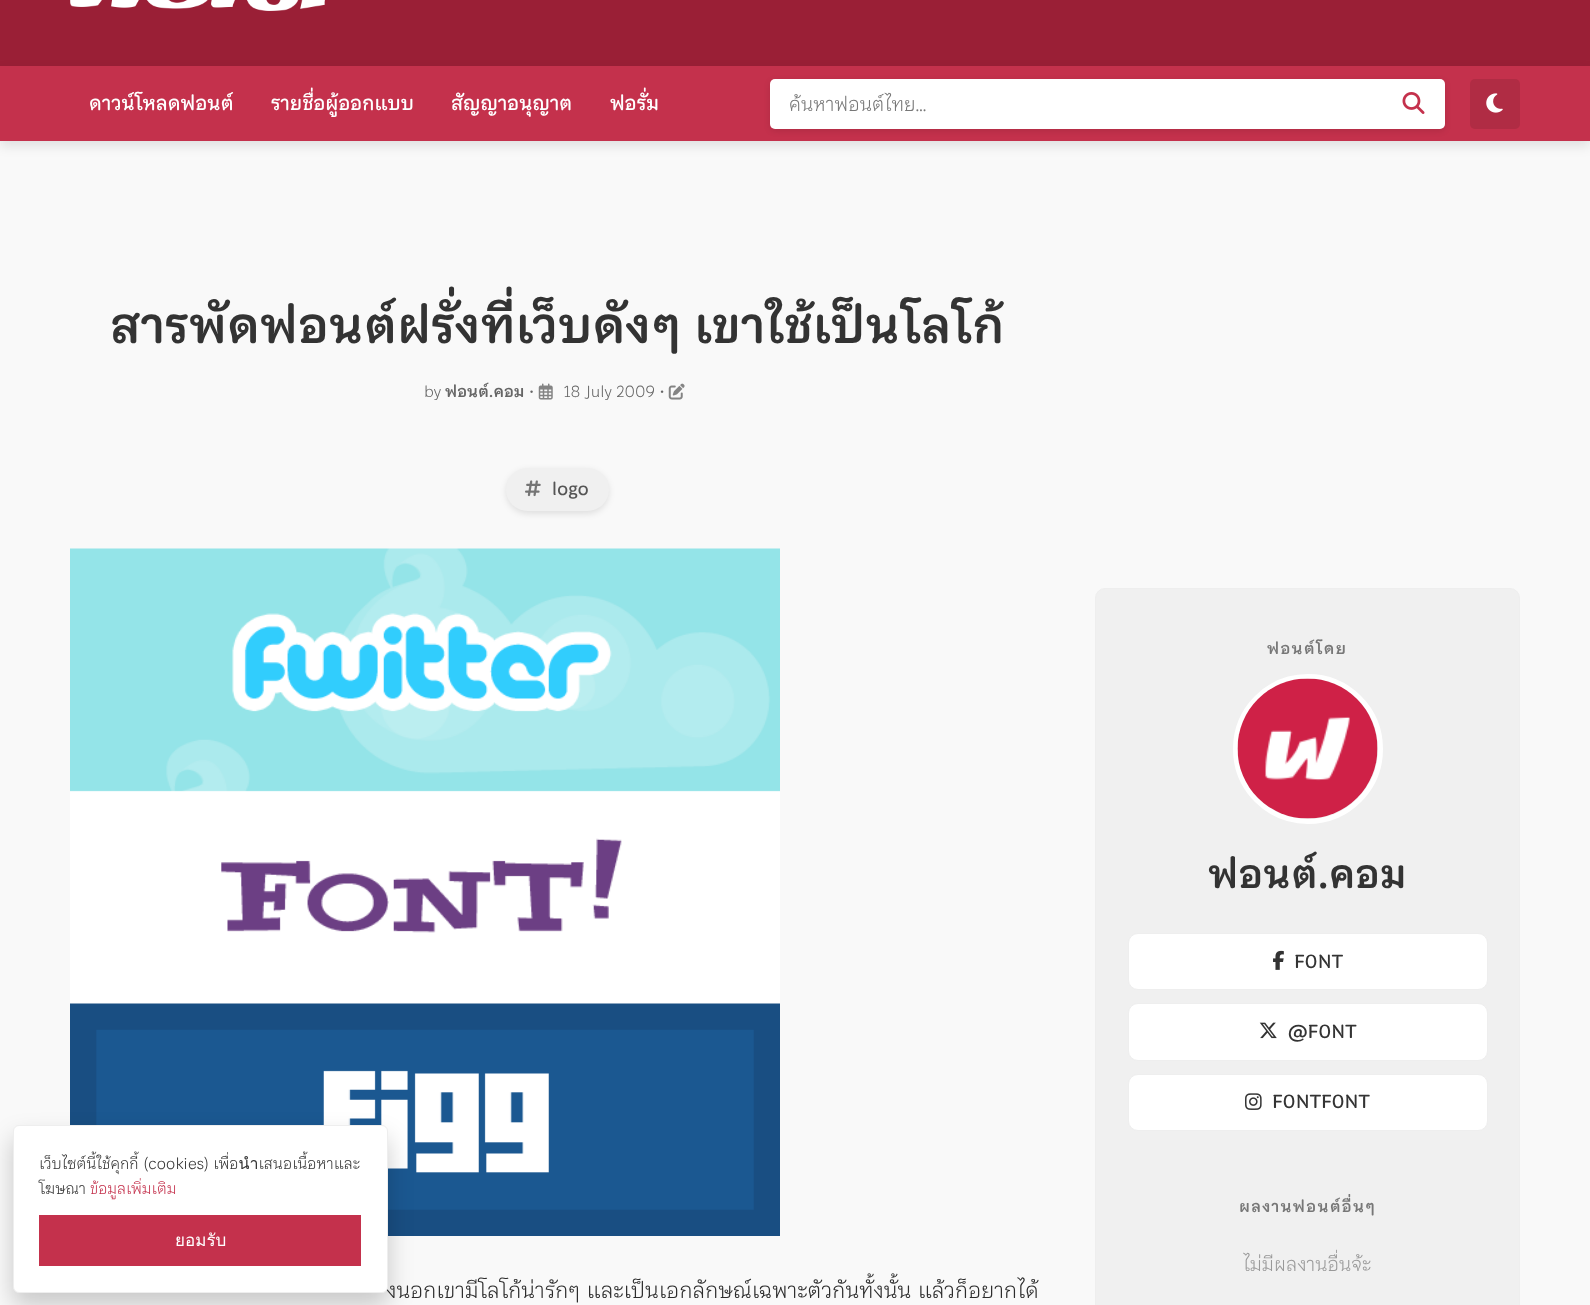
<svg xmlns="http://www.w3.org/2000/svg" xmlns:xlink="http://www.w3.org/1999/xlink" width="1590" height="1305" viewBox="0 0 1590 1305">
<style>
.cls-1{font:500 20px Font;fill:#ffffff}
.cls-2{font:300 20px Font;fill:#777777}
.cls-3{font:bold 50px Font;fill:#333333}
.cls-4{font:300 16px Font;fill:#666666}
.cls-5{font:bold 16px Font;fill:#666666}
.cls-6{font:500 18px Font;fill:#555555}
.cls-7{font:300 22.5px Font;fill:#2c2c2c}
.cls-8{font:bold 16px Font;letter-spacing:1.25px;fill:#777777}
.cls-9{font:bold 40px Font;fill:#333333}
.cls-10{font:500 19px Font;fill:#333333}
.cls-11{font:300 20px Font;fill:#999999}
.cls-12{font:300 16px Font;fill:#333333}
.cls-13{font:300 16px Font;fill:#c4314c}
.cls-14{font:17px Loma;fill:#ffffff}
</style>
<defs>
<clipPath id="clip1"><rect x="789" y="88" width="575" height="32"/></clipPath>
</defs>
<rect width="100%" height="100%" fill="#f9f9f9"/>
<rect fill="#9a1f36" x="0" y="0" width="1590" height="66"/>
<image xlink:href="image0.png" x="70" y="0" width="255" height="11"/>
<rect fill="#000000" fill-opacity="0.1" filter="blur(6px)" x="0" y="71" width="1590" height="75"/>
<rect fill="#c4314c" x="0" y="66" width="1590" height="75"/>
<rect fill="#000000" fill-opacity="0.1" filter="blur(3px)" x="770" y="81" width="675" height="50" rx="5"/>
<rect fill="#ffffff" x="770" y="79" width="675" height="50" rx="5"/>
<image xlink:href="image1.png" x="1402" y="92" width="23" height="22"/>
<rect fill="#b02c44" x="1470" y="79" width="50" height="50" rx="5"/>
<image xlink:href="image2.png" x="1486" y="93" width="17" height="20"/>
<image xlink:href="image3.png" x="538" y="383" width="15" height="17"/>
<image xlink:href="image4.png" x="668" y="383" width="17" height="17"/>
<rect fill="#000000" fill-opacity="0.1" filter="blur(3px)" x="506" y="470" width="103" height="44" rx="22"/>
<rect fill="#f0f0f0" x="506" y="468" width="103" height="43" rx="21.5"/>
<image xlink:href="image5.png" x="525" y="480" width="16" height="17"/>
<image xlink:href="image6.png" x="70" y="548" width="710" height="688"/>
<rect fill="#f0f0f0" stroke="#eeeeee" x="1095.5" y="588.5" width="424" height="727" rx="9.5"/>
<circle fill="none" stroke="#ffffff" stroke-width="5" cx="1308" cy="749" r="72.5"/>
<image xlink:href="image7.png" x="1237" y="678" width="141" height="141"/>
<rect fill="#ffffff" stroke="#eeeeee" x="1128.5" y="933.5" width="359" height="56" rx="9.5"/>
<image xlink:href="image8.png" x="1273" y="950" width="11" height="20"/>
<rect fill="#ffffff" stroke="#eeeeee" x="1128.5" y="1003.5" width="359" height="57" rx="9.5"/>
<image xlink:href="image9.png" x="1259" y="1022" width="18" height="17"/>
<rect fill="#ffffff" stroke="#eeeeee" x="1128.5" y="1074.5" width="359" height="56" rx="9.5"/>
<image xlink:href="image10.png" x="1245" y="1093" width="17" height="17"/>
<rect fill="#000000" fill-opacity="0.2" filter="blur(12.5px)" x="13" y="1138" width="375" height="167" rx="6"/>
<text class="cls-1" x="89" y="110">ดาวน์โหลดฟอนต์</text>
<text class="cls-1" x="271" y="110">รายชื่อผู้ออกแบบ</text>
<text class="cls-1" x="451" y="110">สัญญาอนุญาต</text>
<text class="cls-1" x="610" y="110">ฟอรั่ม</text>
<g clip-path="url(#clip1)">
<text class="cls-2" x="789" y="111">ค้นหาฟอนต์ไทย…</text>
</g>
<text class="cls-3" x="110" y="343">สารพัดฟอนต์ฝรั่งที่เว็บดังๆ เขาใช้เป็นโลโก้</text>
<text class="cls-4" x="424" y="397">by</text>
<text class="cls-5" x="445" y="397">ฟอนต์.คอม</text>
<text class="cls-4" x="529" y="397">•</text>
<text class="cls-4" x="564" y="397">18 July 2009 •</text>
<text class="cls-6" x="552" y="495">logo</text>
<text class="cls-7" x="386" y="1298">งนอกเขามีโลโก้น่ารักๆ และเป็นเอกลักษณ์เฉพาะตัวกันทั้งนั้น แล้วก็อยากได้</text>
<text class="cls-8" x="1267" y="654">ฟอนต์โดย</text>
<text class="cls-9" x="1208" y="888">ฟอนต์.คอม</text>
<text class="cls-10" x="1294" y="968">F0NT</text>
<text class="cls-10" x="1288" y="1038">@F0NT</text>
<text class="cls-10" x="1272" y="1108">F0NTF0NT</text>
<text class="cls-8" x="1239" y="1212">ผลงานฟอนต์อื่นๆ</text>
<text class="cls-11" x="1243" y="1271">ไม่มีผลงานอื่นจ้ะ</text>
<rect fill="#ffffff" stroke="#eeeeee" x="13.5" y="1125.5" width="374" height="167" rx="5.5"/>
<text class="cls-12"><tspan x="39" y="1169">เว็บไซต์นี้ใช้คุกกี้ (cookies) เพื่อนำเสนอเนื้อหาและ</tspan><tspan x="39" y="1194">โฆษณา</tspan></text>
<text class="cls-13" x="90" y="1194">ข้อมูลเพิ่มเติม</text>
<rect fill="#c4314c" x="39" y="1215" width="322" height="51"/>
<text class="cls-14" x="175" y="1246">ยอมรับ</text>
</svg>
